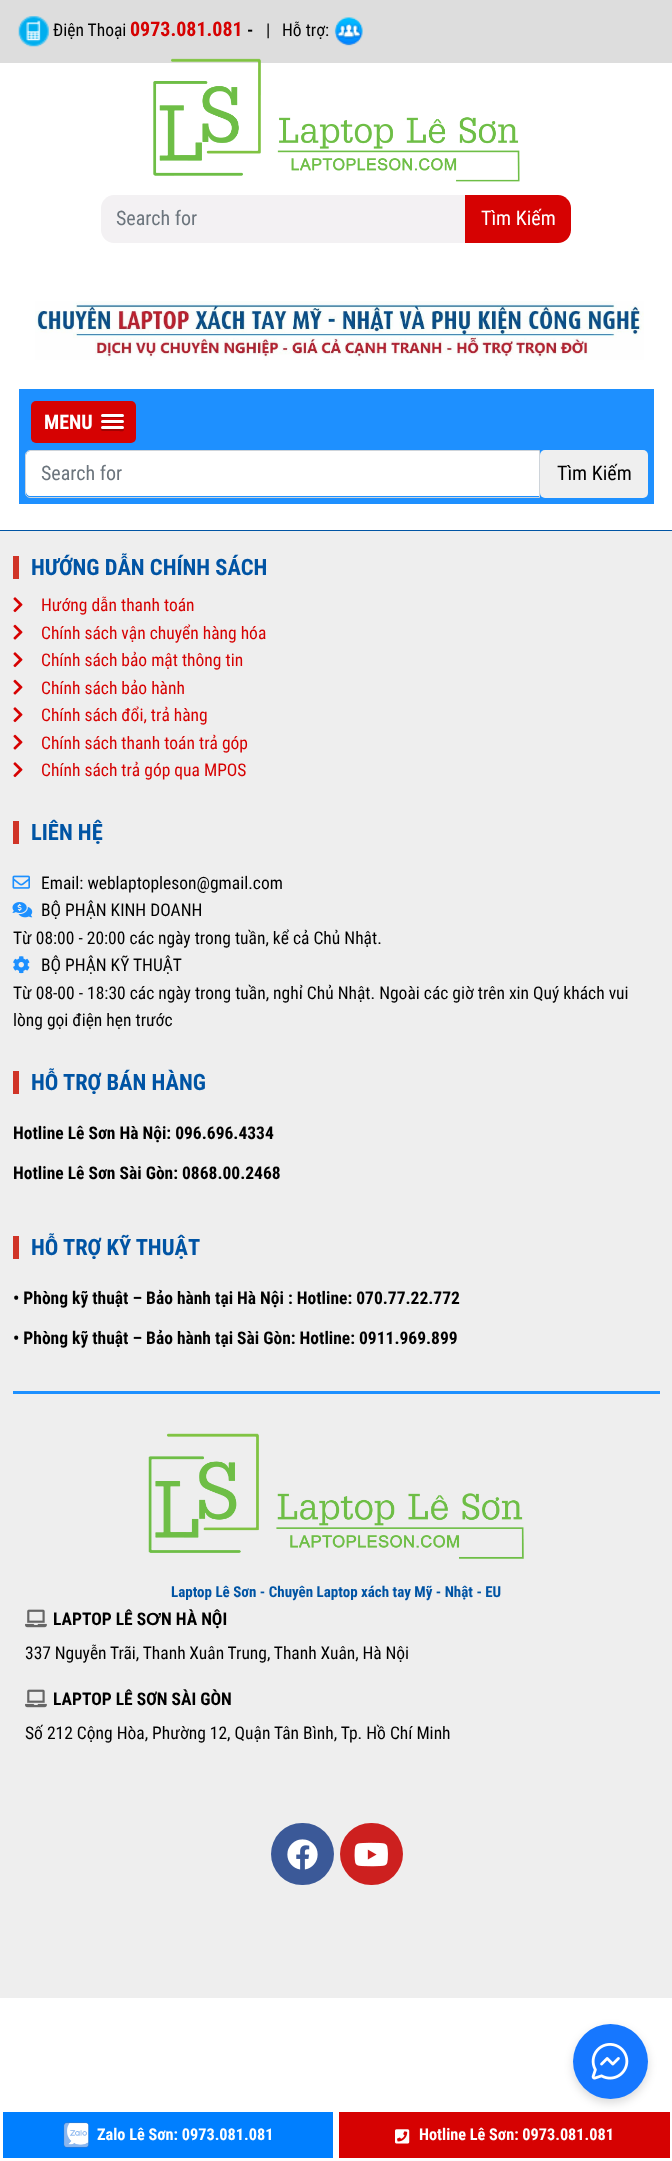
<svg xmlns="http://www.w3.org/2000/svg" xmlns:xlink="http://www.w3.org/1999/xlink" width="672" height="2161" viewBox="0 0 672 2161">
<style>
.cls-1{font:17.5px Roboto Condensed;fill:#000000}
.cls-2{font:bold 20px Roboto Condensed;fill:#d60202}
.cls-3{font:bold 17.5px Roboto Condensed;fill:#000000}
.cls-4{font:20px Roboto Condensed;fill:#6c757d}
.cls-5{font:20px Roboto Condensed;fill:#ffffff}
.cls-6{font:bold 20px Roboto Condensed;fill:#ffffff}
.cls-7{font:20px Roboto Condensed;fill:#000000}
.cls-8{font:bold 22.5px Roboto Condensed;fill:#0054a4}
.cls-9{font:17.5px Roboto Condensed;fill:#d60202}
.cls-10{font:bold 15px Roboto Condensed;fill:#0054a4}
.cls-11{font:bold 17.5px Liberation Sans;fill:#000000}
.cls-12{font:bold 16.25px Roboto Condensed;fill:#ffffff}
</style>
<rect width="100%" height="100%" fill="#ffffff"/>
<rect fill="#dddddd" x="0" y="0" width="672" height="63"/>
<image xlink:href="image0.png" x="18" y="16" width="31" height="31"/>
<image xlink:href="image1.png" x="334" y="17" width="29" height="29"/>
<image xlink:href="image2.png" x="153" y="58" width="367" height="124"/>
<path fill="#f3f1f3" d="M114 195H465V243H114C107 243 101 237 101 230V208C101 201 107 195 114 195Z"/>
<path fill="#d60202" d="M465 195H558C565 195 571 201 571 208V230C571 237 565 243 558 243H465Z"/>
<image xlink:href="image3.png" x="35" y="301" width="609" height="59"/>
<rect fill="#1e90ff" x="19" y="389" width="635" height="115"/>
<rect fill="#d60202" x="31" y="401" width="105" height="42" rx="5"/>
<path fill="#a10202" d="M101.5 415.5L101 417C101.5 419 105 418 106 418H119C120 418 123.5 419 124 417L123.5 415.5C123.5 416 123 416 122.5 416H102.5C102 416 101.5 416 101.5 415.5Z"/>
<rect fill="#ffffff" x="101" y="414" width="23" height="3" rx="1.5"/>
<path fill="#a10202" d="M101.5 421.5C99 424.5 105.5 424 106 424H119C119.5 424 126 424.5 123.5 421.5C123.5 422 123 422.5 122.5 422.5H102.5C102 422.5 101.5 422 101.5 421.5Z"/>
<rect fill="#ffffff" x="101" y="420" width="23" height="3" rx="1.5"/>
<path fill="#a10202" d="M101.5 428.5C100.5 429 101 430.5 102 431H119C120 431 123.5 432 124 430C124 429.5 124 428.5 123.5 428.5C122.5 429 102.5 429 101.5 428.5Z"/>
<rect fill="#ffffff" x="101" y="426" width="23" height="3" rx="1.5"/>
<path fill="#ffffff" d="M30 451H539V496H30C28 496 26 494 26 492V455C26 453 28 451 30 451Z"/>
<path fill="none" stroke="#ced4da" d="M30 450.5H539.5V497.5H30C27.5 497.5 25.5 495.5 25.5 493V455C25.5 452.5 27.5 450.5 30 450.5Z"/>
<rect fill="#efefef" x="540" y="450" width="108" height="48" rx="5"/>
<rect fill="#eeeeee" x="0" y="531" width="672" height="1467"/>
<rect fill="#0054a4" x="0" y="530" width="672" height="1"/>
<rect fill="#d03427" x="13" y="556" width="6" height="23"/>
<image xlink:href="image4.png" x="13" y="597" width="10" height="16"/>
<image xlink:href="image5.png" x="13" y="624" width="10" height="16"/>
<image xlink:href="image4.png" x="13" y="652" width="10" height="16"/>
<image xlink:href="image5.png" x="13" y="679" width="10" height="16"/>
<image xlink:href="image4.png" x="13" y="707" width="10" height="16"/>
<image xlink:href="image5.png" x="13" y="734" width="10" height="16"/>
<image xlink:href="image4.png" x="13" y="762" width="10" height="16"/>
<rect fill="#d03427" x="13" y="821" width="6" height="23"/>
<image xlink:href="image6.png" x="12" y="875" width="18" height="14"/>
<image xlink:href="image7.png" x="12" y="902" width="21" height="16"/>
<image xlink:href="image8.png" x="13" y="956" width="17" height="18"/>
<rect fill="#d03427" x="13" y="1071" width="6" height="23"/>
<rect fill="#d03427" x="13" y="1236" width="6" height="23"/>
<rect fill="#1d90ff" x="13" y="1391" width="647" height="3"/>
<image xlink:href="image9.png" x="148" y="1433" width="376" height="126"/>
<image xlink:href="image10.png" x="25" y="1609" width="22" height="19"/>
<image xlink:href="image10.png" x="25" y="1689" width="22" height="19"/>
<rect fill="#3b5998" x="271" y="1823" width="63" height="62" rx="31"/>
<image xlink:href="image11.png" x="287" y="1839" width="31" height="31"/>
<rect fill="#cd201f" x="340" y="1823" width="63" height="62" rx="31"/>
<image xlink:href="image12.png" x="354" y="1842" width="34" height="25"/>
<rect fill="#007fff" x="3" y="2112" width="330" height="46"/>
<image xlink:href="image13.png" x="63" y="2122" width="26" height="26"/>
<rect fill="#d60202" x="339" y="2112" width="331" height="46"/>
<image xlink:href="image14.png" x="395" y="2129" width="15" height="15"/>
<rect fill="#000000" fill-opacity="0.15" filter="blur(5px)" x="573" y="2028" width="75" height="75" rx="37.5"/>
<circle fill="#1677ff" cx="610.5" cy="2061.5" r="37.5"/>
<image xlink:href="image15.png" x="591" y="2043" width="38" height="37"/>
<text class="cls-1" x="53" y="36">Điện Thoại</text>
<text class="cls-2" x="130" y="36">0973.081.081</text>
<text class="cls-3" x="247" y="36">-</text>
<text class="cls-1" x="266" y="36">|</text>
<text class="cls-1" x="282" y="36">Hỗ trợ:</text>
<text class="cls-4" x="116" y="225">Search for</text>
<text class="cls-5" x="481" y="225">Tìm Kiếm</text>
<text class="cls-6" x="44" y="429">MENU</text>
<text class="cls-4" x="41" y="480">Search for</text>
<text class="cls-7" x="557" y="480">Tìm Kiếm</text>
<text class="cls-8" x="31" y="575">HƯỚNG DẪN CHÍNH SÁCH</text>
<text class="cls-9"><tspan x="41" y="611">Hướng dẫn thanh toán</tspan><tspan x="41" y="639">Chính sách vận chuyển hàng hóa</tspan><tspan x="41" y="666">Chính sách bảo mật thông tin</tspan><tspan x="41" y="694">Chính sách bảo hành</tspan><tspan x="41" y="721">Chính sách đổi, trả hàng</tspan><tspan x="41" y="749">Chính sách thanh toán trả góp</tspan><tspan x="41" y="776">Chính sách trả góp qua MPOS</tspan></text>
<text class="cls-8" x="31" y="840">LIÊN HỆ</text>
<text class="cls-1"><tspan x="41" y="889">Email: weblaptopleson@gmail.com</tspan><tspan x="41" y="916">BỘ PHẬN KINH DOANH</tspan></text>
<text class="cls-1" x="13" y="944">Từ 08:00 - 20:00 các ngày trong tuần, kể cả Chủ Nhật.</text>
<text class="cls-1" x="41" y="971">BỘ PHẬN KỸ THUẬT</text>
<text class="cls-1"><tspan x="13" y="999">Từ 08-00 - 18:30 các ngày trong tuần, nghỉ Chủ Nhật. Ngoài các giờ trên xin Quý khách vui</tspan><tspan x="13" y="1026">lòng gọi điện hẹn trước</tspan></text>
<text class="cls-8" x="31" y="1090">HỖ TRỢ BÁN HÀNG</text>
<text class="cls-3" x="13" y="1139">Hotline Lê Sơn Hà Nội: 096.696.4334</text>
<text class="cls-3" x="13" y="1179">Hotline Lê Sơn Sài Gòn: 0868.00.2468</text>
<text class="cls-8" x="31" y="1255">HỖ TRỢ KỸ THUẬT</text>
<text class="cls-3" x="13" y="1304">• Phòng kỹ thuật – Bảo hành tại Hà Nội : Hotline: 070.77.22.772</text>
<text class="cls-3" x="13" y="1344">• Phòng kỹ thuật – Bảo hành tại Sài Gòn: Hotline: 0911.969.899</text>
<text class="cls-10" x="171" y="1597">Laptop Lê Sơn - Chuyên Laptop xách tay Mỹ - Nhật - EU</text>
<text class="cls-3" x="53" y="1625">LAPTOP LÊ S</text>
<text class="cls-11" x="146" y="1625">Ơ</text>
<text class="cls-3" x="161" y="1625">N HÀ NỘI</text>
<text class="cls-1" x="25" y="1659" word-spacing="-0.25">337 Nguyễn Trãi, Thanh Xuân Trung, Thanh Xuân, Hà Nội</text>
<text class="cls-3" x="53" y="1705">LAPTOP LÊ SƠN SÀI GÒN</text>
<text class="cls-1" x="25" y="1739">Số 212 Cộng Hòa, Phường 12, Quận Tân Bình, Tp. Hồ Chí Minh</text>
<text class="cls-12" x="97" y="2140">Zalo Lê Sơn: 0973.081.081</text>
<text class="cls-12" x="419" y="2140">Hotline Lê Sơn: 0973.081.081</text>
</svg>
